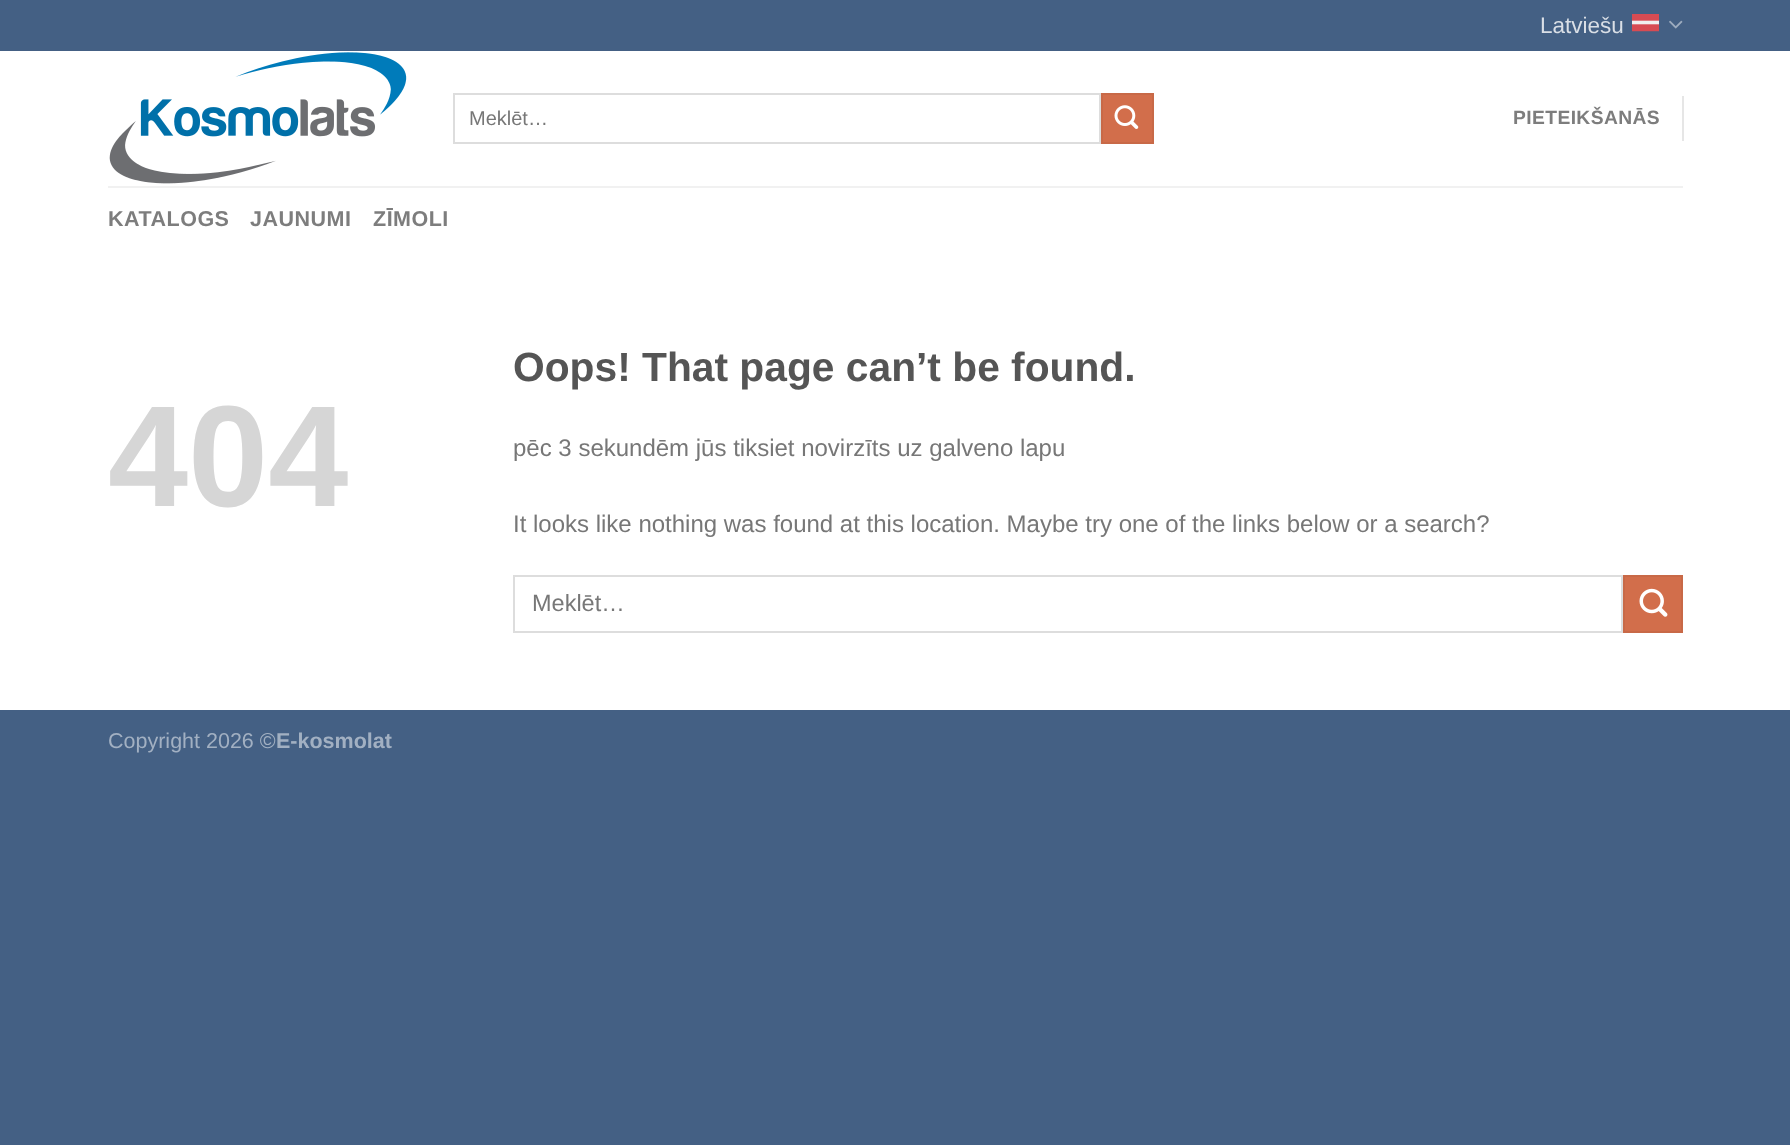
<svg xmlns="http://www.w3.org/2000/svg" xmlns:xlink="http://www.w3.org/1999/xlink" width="1790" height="1145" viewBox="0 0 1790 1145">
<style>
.cls-1{font:22.5px Liberation Sans;fill:#dadfe6}
.cls-2{font:20px Liberation Sans;fill:#777777}
.cls-3{font:bold 19.25px Liberation Sans;letter-spacing:0.4px;fill:#7d7d7d}
.cls-4{font:bold 21.5px Liberation Sans;letter-spacing:0.5px;fill:#7d7d7d}
.cls-5{font:bold 144px Liberation Sans;fill:#d6d6d6}
.cls-6{font:bold 40.75px Liberation Sans;fill:#555555}
.cls-7{font:24px Liberation Sans;fill:#777777}
.cls-8{font:23.5px Liberation Sans;fill:#777777}
.cls-9{font:21.5px Liberation Sans;fill:#a2b0c2}
.cls-10{font:bold 21.5px Liberation Sans;fill:#a2b0c2}
</style>
<rect width="100%" height="100%" fill="#446084"/>
<rect fill="#ffffff" x="0" y="51" width="1790" height="659"/>
<image xlink:href="image0.png" x="1632" y="14" width="27" height="18"/>
<image xlink:href="image1.png" x="1669" y="20" width="14" height="9"/>
<image xlink:href="image2.png" x="109" y="52" width="298" height="132"/>
<rect fill="none" stroke="#dddddd" stroke-width="2" x="454" y="94" width="646" height="49"/>
<rect fill="#d26e4b" stroke="#c86947" stroke-width="2" x="1102" y="94" width="51" height="49"/>
<image xlink:href="image3.png" x="1114" y="105" width="25" height="24"/>
<rect fill="#e6e6e6" x="1682" y="96" width="2" height="45"/>
<rect fill="#f1f1f1" x="108" y="186" width="1575" height="2"/>
<rect fill="none" stroke="#dddddd" stroke-width="2" x="514" y="576" width="1108" height="56"/>
<rect fill="#d26e4b" stroke="#c86947" stroke-width="2" x="1624" y="576" width="58" height="56"/>
<image xlink:href="image4.png" x="1639" y="588" width="29" height="29"/>
<text class="cls-1" x="1540" y="33">Latviešu</text>
<text class="cls-2" x="469" y="125">Meklēt…</text>
<text class="cls-3" x="1513" y="124">PIETEIKŠANĀS</text>
<text class="cls-4" x="108" y="226">KATALOGS</text>
<text class="cls-4" x="250" y="226">JAUNUMI</text>
<text class="cls-4" x="373" y="226">ZĪMOLI</text>
<text class="cls-5" x="108" y="506">404</text>
<text class="cls-6" x="513" y="381">Oops! That page can’t be found.</text>
<text class="cls-7" x="513" y="456">pēc 3 sekundēm jūs tiksiet novirzīts uz galveno lapu</text>
<text class="cls-7" x="513" y="532">It looks like nothing was found at this location. Maybe try one of the links below or a search?</text>
<text class="cls-8" x="532" y="611">Meklēt…</text>
<text class="cls-9" x="108" y="748">Copyright 2026 ©</text>
<text class="cls-10" x="276" y="748">E-kosmolat</text>
</svg>
